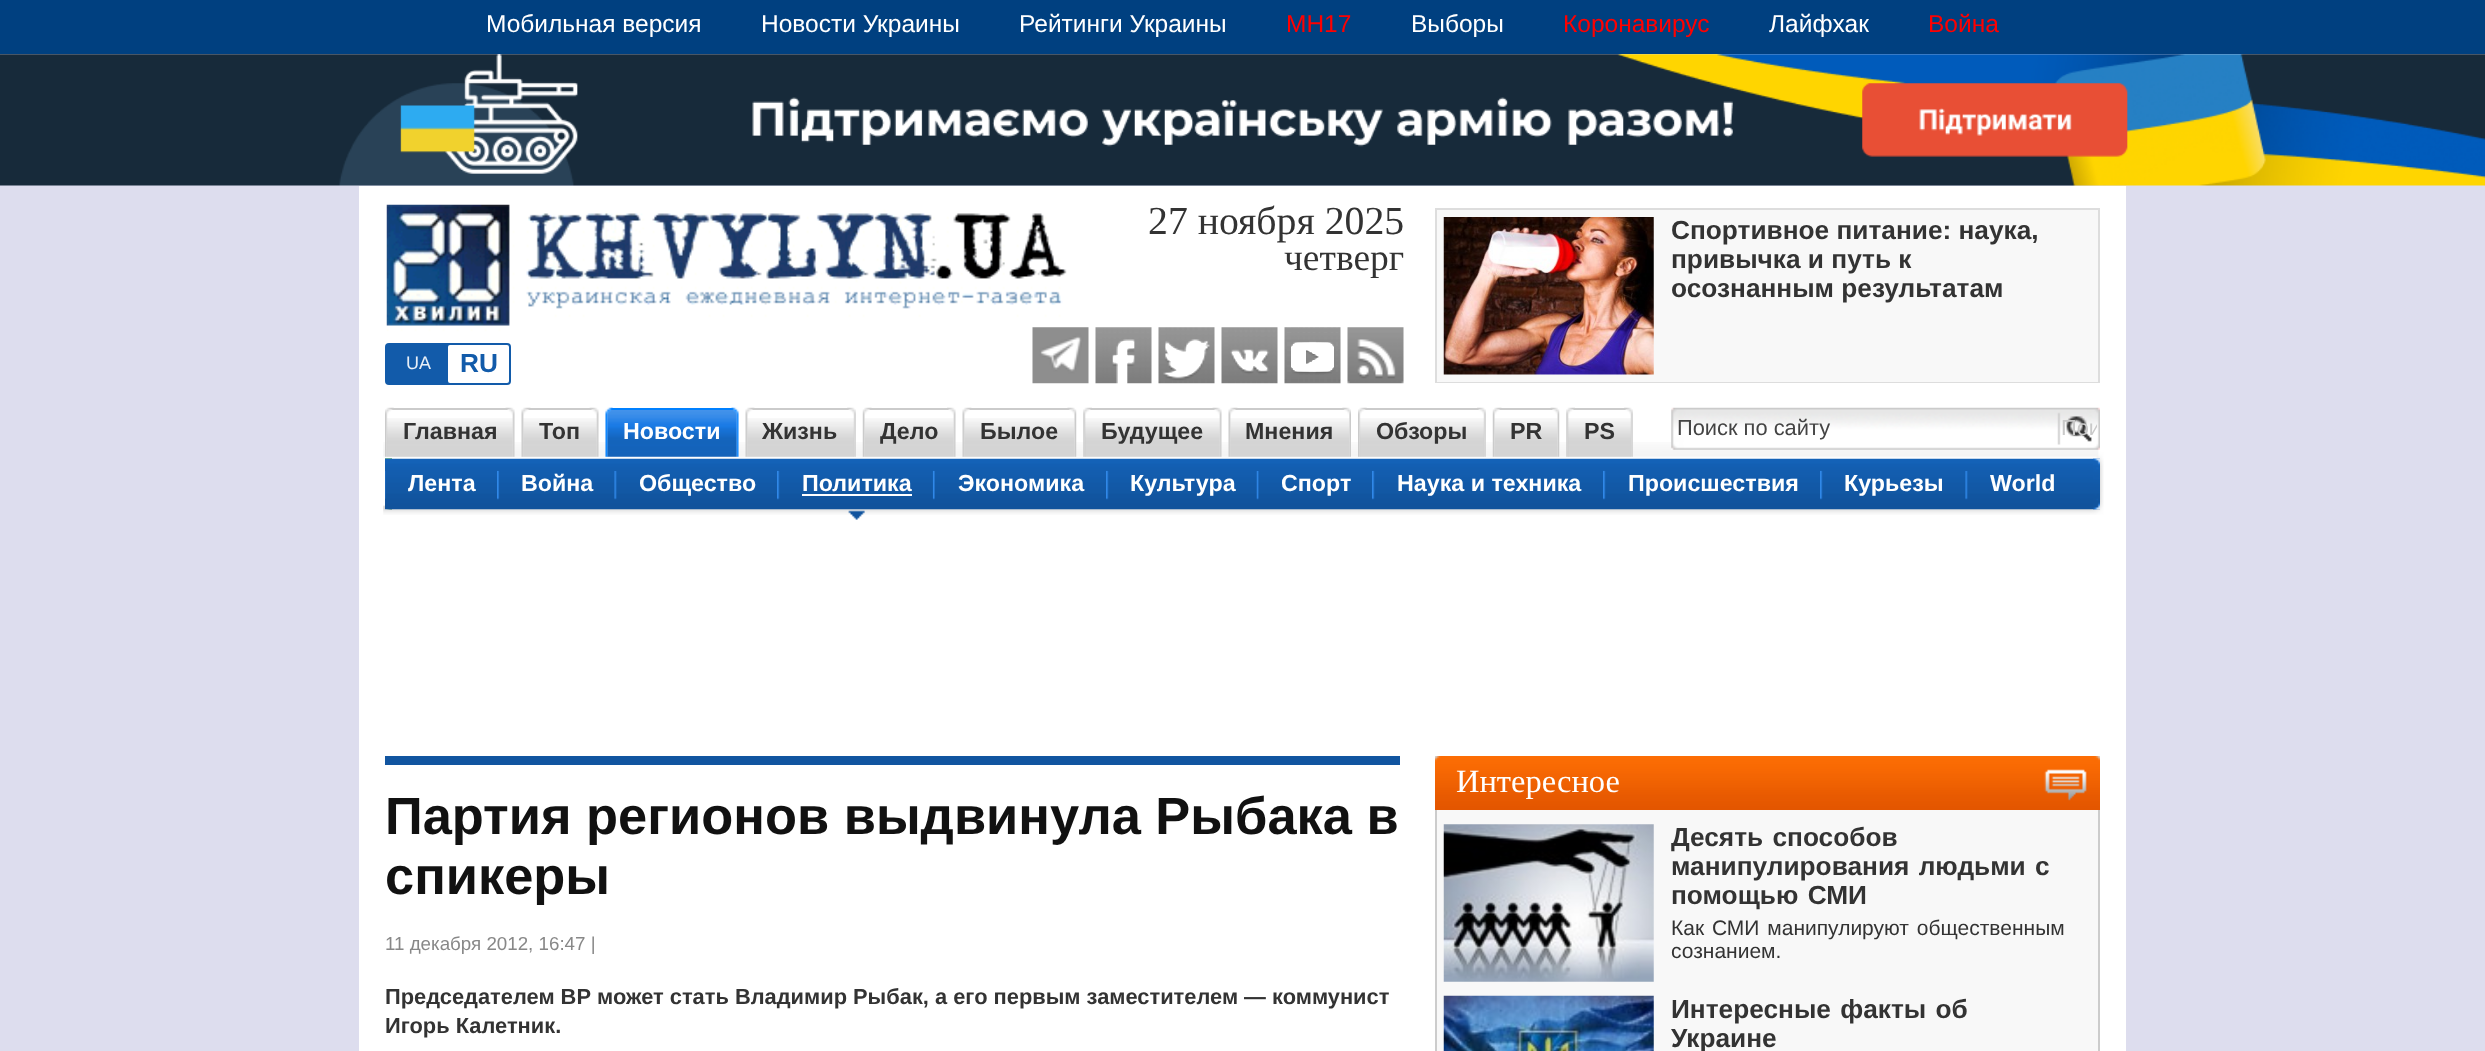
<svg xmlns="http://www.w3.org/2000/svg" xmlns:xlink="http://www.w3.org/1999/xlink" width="2485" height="1051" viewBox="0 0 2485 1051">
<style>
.cls-1{font:24.5px Liberation Sans;fill:#ffffff}
.cls-2{font:24.5px Liberation Sans;fill:#ff0000}
.cls-3{font:39.75px Liberation Serif;fill:#333333}
.cls-4{font:37.5px Liberation Serif;fill:#333333}
.cls-5{font:bold 26.25px Liberation Sans;fill:#333333}
.cls-6{font:18px Liberation Sans;fill:#e7eff7}
.cls-7{font:bold 26.25px Liberation Sans;fill:#125baa}
.cls-8{font:21.85px Liberation Sans;fill:#444444}
.cls-9{font:21.85px Liberation Sans;fill:#c9c9c9}
.cls-10{font:bold 23.25px Liberation Sans;fill:#333333}
.cls-11{font:bold 23.25px Liberation Sans;fill:#ffffff}
.cls-12{font:bold 52.4px Liberation Sans;fill:#111111}
.cls-13{font:18.75px Liberation Sans;fill:#888888}
.cls-14{font:bold 21.85px Liberation Sans;fill:#333333}
.cls-15{font:32.5px Liberation Serif;fill:#ffffff}
.cls-16{font:21px Liberation Sans;fill:#333333}
</style>
<defs>
<clipPath id="clip1"><rect x="2055" y="415" width="42" height="30"/></clipPath>
</defs>
<rect width="100%" height="100%" fill="#ddddee"/>
<rect fill="#004080" x="0" y="0" width="2485" height="54"/>
<image xlink:href="image0.png" x="0" y="54" width="2485" height="132"/>
<rect fill="#ffffff" x="359" y="186" width="1767" height="865"/>
<image xlink:href="image1.png" x="386" y="204" width="681" height="141"/>
<image xlink:href="image2.png" x="1032" y="327" width="57" height="57"/>
<image xlink:href="image3.png" x="1095" y="327" width="57" height="57"/>
<image xlink:href="image4.png" x="1158" y="327" width="57" height="57"/>
<image xlink:href="image5.png" x="1221" y="327" width="57" height="57"/>
<image xlink:href="image6.png" x="1284" y="327" width="57" height="57"/>
<image xlink:href="image7.png" x="1347" y="327" width="57" height="57"/>
<rect fill="none" stroke="#dddddd" stroke-width="2" x="1436" y="209" width="663" height="173"/>
<rect fill="#f8f8f8" x="1437" y="210" width="661" height="172"/>
<image xlink:href="image8.png" x="1443" y="217" width="211" height="158"/>
<rect fill="#125baa" x="385" y="343" width="126" height="42" rx="4"/>
<rect fill="#ffffff" x="448" y="345" width="61" height="38" rx="2"/>
<image xlink:href="image10.png" x="383" y="442" width="1721" height="73"/>
<image xlink:href="image9.png" x="1671" y="407" width="429" height="43"/>
<image xlink:href="image11.png" x="386" y="418" width="127" height="39"/>
<rect fill="#cbcbcb" x="387" y="408" width="126" height="2"/>
<image xlink:href="image12.png" x="505" y="407" width="10" height="50"/>
<image xlink:href="image13.png" x="385" y="407" width="9" height="50"/>
<image xlink:href="image14.png" x="523" y="418" width="74" height="39"/>
<rect fill="#cbcbcb" x="523" y="408" width="74" height="2"/>
<image xlink:href="image15.png" x="589" y="407" width="10" height="50"/>
<image xlink:href="image16.png" x="521" y="407" width="10" height="50"/>
<image xlink:href="image17.png" x="607" y="410" width="130" height="47"/>
<rect fill="#0080ff" x="607" y="408" width="130" height="2"/>
<image xlink:href="image18.png" x="731" y="407" width="8" height="50"/>
<image xlink:href="image19.png" x="605" y="407" width="8" height="50"/>
<image xlink:href="image20.png" x="747" y="418" width="107" height="39"/>
<rect fill="#cbcbcb" x="747" y="408" width="107" height="2"/>
<image xlink:href="image21.png" x="847" y="407" width="9" height="50"/>
<image xlink:href="image22.png" x="745" y="407" width="10" height="50"/>
<image xlink:href="image23.png" x="864" y="418" width="90" height="39"/>
<rect fill="#cbcbcb" x="865" y="408" width="89" height="2"/>
<image xlink:href="image24.png" x="947" y="407" width="9" height="50"/>
<image xlink:href="image25.png" x="862" y="407" width="10" height="50"/>
<image xlink:href="image26.png" x="964" y="418" width="111" height="39"/>
<rect fill="#cbcbcb" x="964" y="408" width="111" height="2"/>
<image xlink:href="image27.png" x="1067" y="407" width="10" height="50"/>
<image xlink:href="image28.png" x="962" y="407" width="10" height="50"/>
<image xlink:href="image29.png" x="1085" y="418" width="135" height="39"/>
<rect fill="#cbcbcb" x="1085" y="408" width="135" height="2"/>
<image xlink:href="image15.png" x="1212" y="407" width="10" height="50"/>
<image xlink:href="image30.png" x="1083" y="407" width="9" height="50"/>
<image xlink:href="image31.png" x="1230" y="418" width="120" height="39"/>
<rect fill="#cbcbcb" x="1230" y="408" width="119" height="2"/>
<image xlink:href="image32.png" x="1342" y="407" width="9" height="50"/>
<image xlink:href="image33.png" x="1228" y="407" width="10" height="50"/>
<image xlink:href="image34.png" x="1359" y="418" width="125" height="39"/>
<rect fill="#cbcbcb" x="1360" y="408" width="124" height="2"/>
<image xlink:href="image35.png" x="1477" y="407" width="9" height="50"/>
<image xlink:href="image36.png" x="1358" y="407" width="9" height="50"/>
<image xlink:href="image37.png" x="1494" y="418" width="64" height="39"/>
<rect fill="#cbcbcb" x="1495" y="408" width="63" height="2"/>
<image xlink:href="image38.png" x="1550" y="407" width="10" height="50"/>
<image xlink:href="image39.png" x="1492" y="407" width="10" height="50"/>
<image xlink:href="image40.png" x="1568" y="418" width="63" height="39"/>
<rect fill="#cbcbcb" x="1568" y="408" width="63" height="2"/>
<image xlink:href="image35.png" x="1624" y="407" width="9" height="50"/>
<image xlink:href="image41.png" x="1566" y="407" width="9" height="50"/>
<image xlink:href="image42.png" x="385" y="458" width="7" height="52"/>
<image xlink:href="image43.png" x="385" y="458" width="1715" height="52"/>
<image xlink:href="image44.png" x="2093" y="458" width="7" height="52"/>
<image xlink:href="image45.png" x="385" y="471" width="1" height="28"/>
<image xlink:href="image46.png" x="497" y="470" width="3" height="30"/>
<image xlink:href="image47.png" x="614" y="471" width="3" height="29"/>
<image xlink:href="image48.png" x="848" y="510" width="17" height="10"/>
<image xlink:href="image49.png" x="777" y="470" width="3" height="30"/>
<rect fill="#ffffff" x="802" y="494" width="110" height="2"/>
<image xlink:href="image50.png" x="932" y="470" width="3" height="30"/>
<image xlink:href="image49.png" x="1106" y="470" width="3" height="30"/>
<image xlink:href="image51.png" x="1256" y="471" width="3" height="29"/>
<image xlink:href="image49.png" x="1372" y="470" width="3" height="30"/>
<image xlink:href="image49.png" x="1603" y="470" width="3" height="30"/>
<image xlink:href="image49.png" x="1820" y="470" width="3" height="30"/>
<image xlink:href="image47.png" x="1965" y="471" width="3" height="29"/>
<rect fill="#1155a0" x="385" y="756" width="1015" height="9"/>
<image xlink:href="image52.png" x="1435" y="756" width="665" height="54"/>
<rect fill="#f8f8f8" x="1437" y="810" width="661" height="241"/>
<rect fill="#cccccc" x="2098" y="810" width="2" height="241"/>
<rect fill="#cccccc" x="1435" y="810" width="2" height="241"/>
<image xlink:href="image53.png" x="1443" y="824" width="211" height="158"/>
<image xlink:href="image54.png" x="1443" y="995" width="211" height="56"/>
<text class="cls-1" x="486" y="32">Мобильная версия</text>
<text class="cls-1" x="761" y="32">Новости Украины</text>
<text class="cls-1" x="1019" y="32">Рейтинги Украины</text>
<text class="cls-2" x="1286" y="32">MH17</text>
<text class="cls-1" x="1411" y="32">Выборы</text>
<text class="cls-2" x="1563" y="32">Коронавирус</text>
<text class="cls-1" x="1769" y="32">Лайфхак</text>
<text class="cls-2" x="1928" y="32">Война</text>
<text class="cls-3" x="1148" y="234">27 ноября 2025</text>
<text class="cls-4" x="1284" y="270">четверг</text>
<text class="cls-5"><tspan x="1671" y="239">Спортивное питание: наука,</tspan><tspan x="1671" y="268">привычка и путь к</tspan><tspan x="1671" y="297">осознанным результатам</tspan></text>
<text class="cls-6" x="406" y="369">UA</text>
<text class="cls-7" x="460" y="372">RU</text>
<text class="cls-8" x="1677" y="435">Поиск по сайту</text>
<g clip-path="url(#clip1)">
<text class="cls-9" x="2061" y="435">Пои</text>
</g>
<text class="cls-10" x="403" y="439">Главная</text>
<text class="cls-10" x="539" y="439">Топ</text>
<text class="cls-11" x="623" y="439">Новости</text>
<text class="cls-10" x="762" y="439">Жизнь</text>
<text class="cls-10" x="880" y="439">Дело</text>
<text class="cls-10" x="980" y="439">Былое</text>
<text class="cls-10" x="1101" y="439">Будущее</text>
<text class="cls-10" x="1245" y="439">Мнения</text>
<text class="cls-10" x="1376" y="439">Обзоры</text>
<text class="cls-10" x="1510" y="439">PR</text>
<text class="cls-10" x="1584" y="439">PS</text>
<text class="cls-11" x="408" y="491">Лента</text>
<text class="cls-11" x="521" y="491">Война</text>
<text class="cls-11" x="639" y="491">Общество</text>
<text class="cls-11" x="802" y="491">Политика</text>
<text class="cls-11" x="958" y="491">Экономика</text>
<text class="cls-11" x="1130" y="491">Культура</text>
<text class="cls-11" x="1281" y="491">Спорт</text>
<text class="cls-11" x="1397" y="491">Наука и техника</text>
<text class="cls-11" x="1628" y="491">Происшествия</text>
<text class="cls-11" x="1844" y="491">Курьезы</text>
<text class="cls-11" x="1990" y="491">World</text>
<text class="cls-12"><tspan x="385" y="834">Партия регионов выдвинула Рыбака в</tspan><tspan x="385" y="894">спикеры</tspan></text>
<text class="cls-13" x="385" y="950">11 декабря 2012, 16:47 |</text>
<text class="cls-14"><tspan x="385" y="1004">Председателем ВР может стать Владимир Рыбак, а его первым заместителем — коммунист</tspan><tspan x="385" y="1033">Игорь Калетник.</tspan></text>
<text class="cls-15" x="1456" y="792">Интересное</text>
<text class="cls-5"><tspan x="1671" y="846" word-spacing="2">Десять способов</tspan><tspan x="1671" y="875" word-spacing="2">манипулирования людьми с</tspan><tspan x="1671" y="904" word-spacing="2">помощью СМИ</tspan></text>
<text class="cls-16"><tspan x="1671" y="935" word-spacing="2">Как СМИ манипулируют общественным</tspan><tspan x="1671" y="958">сознанием.</tspan></text>
<text class="cls-5"><tspan x="1671" y="1018" word-spacing="2">Интересные факты об</tspan><tspan x="1671" y="1047">Украине</tspan></text>
</svg>
